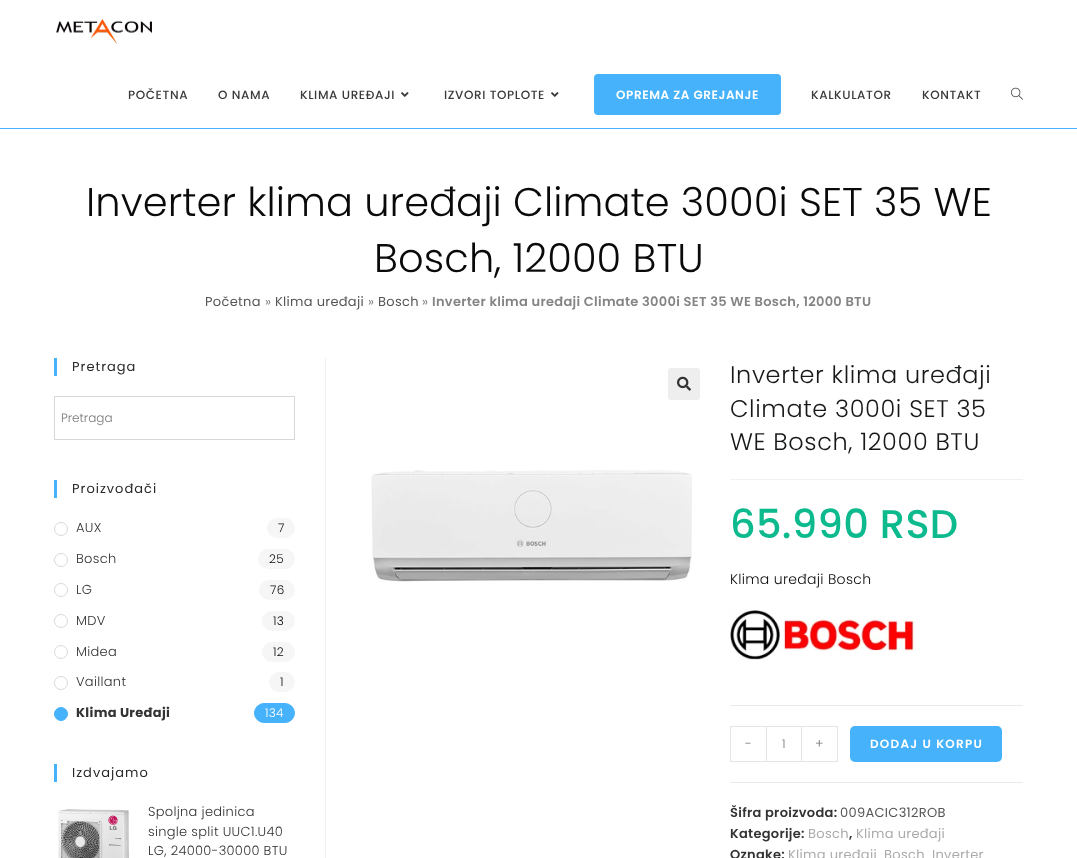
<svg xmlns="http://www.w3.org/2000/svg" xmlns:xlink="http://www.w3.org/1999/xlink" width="1077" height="858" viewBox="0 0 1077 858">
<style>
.cls-1{font:500 12px Poppins;letter-spacing:0.6px;fill:#3a3a3a}
.cls-2{font:600 12px Poppins;letter-spacing:0.6px;fill:#ffffff}
.cls-3{font:300 40px Poppins;letter-spacing:0.1px;fill:#0a0a0a}
.cls-4{font:13px Poppins;letter-spacing:0.3px;fill:#565656}
.cls-5{font:13px Poppins;letter-spacing:0.3px;fill:#848484}
.cls-6{font:600 13px Poppins;letter-spacing:0.3px;fill:#848484}
.cls-7{font:13px Poppins;letter-spacing:1px;fill:#282828}
.cls-8{font:300 12px Poppins;fill:#777777}
.cls-9{font:300 13px Poppins;letter-spacing:0.3px;fill:#333333}
.cls-10{font:300 12px Poppins;letter-spacing:0.3px;fill:#0a0a0a}
.cls-11{font:bold 13px Poppins;letter-spacing:0.3px;fill:#333333}
.cls-12{font:300 12px Poppins;letter-spacing:0.3px;fill:#ffffff}
.cls-13{font:300 24px Poppins;letter-spacing:0.6px;fill:#161819}
.cls-14{font:500 40px Poppins;letter-spacing:0.3px;fill:#0cba8e}
.cls-15{font:300 14px Poppins;letter-spacing:0.3px;fill:#0a0a0a}
.cls-16{font:300 13px Poppins;letter-spacing:0.3px;fill:#777777}
.cls-17{font:600 12px Poppins;letter-spacing:1.25px;fill:#ffffff}
.cls-18{font:600 13px Poppins;letter-spacing:0.3px;fill:#333333}
.cls-19{font:13px Poppins;letter-spacing:0.3px;fill:#ababab}
</style>
<rect width="100%" height="100%" fill="#ffffff"/>
<rect fill="#46b2fb" x="0" y="128" width="1077" height="1"/>
<image xlink:href="image0.png" x="56" y="19" width="96" height="25"/>
<image xlink:href="image1.png" x="401" y="92" width="8" height="5"/>
<image xlink:href="image1.png" x="551" y="92" width="8" height="5"/>
<rect fill="#46b2fb" x="594" y="74" width="187" height="41" rx="4"/>
<image xlink:href="image2.png" x="1011" y="87" width="12" height="13"/>
<rect fill="#46b2fb" x="54" y="358" width="3" height="18"/>
<rect fill="none" stroke="#d8d8d8" x="54.5" y="396.5" width="240" height="43"/>
<rect fill="#46b2fb" x="54" y="480" width="3" height="18"/>
<circle fill="none" stroke="#d9d9d9" cx="61" cy="529" r="6.5"/>
<rect fill="#f6f6f6" x="267" y="518" width="28" height="20" rx="10"/>
<circle fill="none" stroke="#d9d9d9" cx="61" cy="560" r="6.5"/>
<rect fill="#f6f6f6" x="258" y="549" width="37" height="20" rx="10"/>
<circle fill="none" stroke="#d9d9d9" cx="61" cy="590" r="6.5"/>
<rect fill="#f6f6f6" x="259" y="580" width="36" height="20" rx="10"/>
<circle fill="none" stroke="#d9d9d9" cx="61" cy="621" r="6.5"/>
<rect fill="#f6f6f6" x="262" y="611" width="33" height="20" rx="10"/>
<circle fill="none" stroke="#d9d9d9" cx="61" cy="652" r="6.5"/>
<rect fill="#f6f6f6" x="262" y="642" width="33" height="20" rx="10"/>
<circle fill="none" stroke="#d9d9d9" cx="61" cy="683" r="6.5"/>
<rect fill="#f6f6f6" x="269" y="672" width="26" height="20" rx="10"/>
<circle fill="#46b2fb" stroke="#46b2fb" cx="61" cy="714" r="6.5"/>
<rect fill="#46b2fb" stroke="#46b2fb" x="254.5" y="703.5" width="40" height="19" rx="9.5"/>
<rect fill="#46b2fb" x="54" y="764" width="3" height="18"/>
<image xlink:href="image3.png" x="58" y="809" width="71" height="49"/>
<rect fill="#f1f1f1" x="325" y="358" width="1" height="500"/>
<rect fill="#eeeeee" x="668" y="368" width="32" height="32" rx="3"/>
<image xlink:href="image4.png" x="677" y="376" width="14" height="15"/>
<image xlink:href="image5.png" x="371" y="470" width="321" height="112"/>
<rect fill="#f1f1f1" x="730" y="479" width="293" height="1"/>
<image xlink:href="image6.png" x="730" y="610" width="187" height="50"/>
<rect fill="#eaeaea" x="730" y="705" width="293" height="1"/>
<rect fill="#eaeaea" x="730" y="782" width="293" height="1"/>
<rect fill="#e4e4e4" x="730" y="726" width="36" height="1"/>
<rect fill="#e4e4e4" x="730" y="761" width="36" height="1"/>
<rect fill="#e4e4e4" x="730" y="726" width="1" height="36"/>
<rect fill="none" stroke="#e4e4e4" x="766.5" y="726.5" width="35" height="35"/>
<rect fill="#e4e4e4" x="802" y="726" width="36" height="1"/>
<rect fill="#e4e4e4" x="837" y="726" width="1" height="36"/>
<rect fill="#e4e4e4" x="802" y="761" width="36" height="1"/>
<rect fill="#46b2fb" x="850" y="726" width="152" height="36" rx="5"/>
<text class="cls-1" x="128" y="99">POČETNA</text>
<text class="cls-1" x="218" y="99">O NAMA</text>
<text class="cls-1" x="300" y="99">KLIMA UREĐAJI</text>
<text class="cls-1" x="444" y="99">IZVORI TOPLOTE</text>
<text class="cls-2" x="616" y="99">OPREMA ZA GREJANJE</text>
<text class="cls-1" x="811" y="99">KALKULATOR</text>
<text class="cls-1" x="922" y="99">KONTAKT</text>
<text class="cls-3" x="86" y="216">Inverter klima uređaji Climate 3000i SET 35 WE</text>
<text class="cls-3" x="374" y="272">Bosch, 12000 BTU</text>
<text class="cls-4" x="205" y="306">Početna</text>
<text class="cls-5" x="265" y="306">»</text>
<text class="cls-4" x="275" y="306">Klima uređaji</text>
<text class="cls-5" x="368" y="306">»</text>
<text class="cls-4" x="378" y="306">Bosch</text>
<text class="cls-5" x="422" y="306">»</text>
<text class="cls-6" x="432" y="306">Inverter klima uređaji Climate 3000i SET 35 WE Bosch, 12000 BTU</text>
<text class="cls-7" x="72" y="371">Pretraga</text>
<text class="cls-8" x="61" y="422">Pretraga</text>
<text class="cls-7" x="72" y="493">Proizvođači</text>
<text class="cls-9" x="76" y="532">AUX</text>
<text class="cls-10" x="278" y="532">7</text>
<text class="cls-9" x="76" y="563">Bosch</text>
<text class="cls-10" x="269" y="563">25</text>
<text class="cls-9" x="76" y="594">LG</text>
<text class="cls-10" x="270" y="594">76</text>
<text class="cls-9" x="76" y="625">MDV</text>
<text class="cls-10" x="273" y="625">13</text>
<text class="cls-9" x="76" y="656">Midea</text>
<text class="cls-10" x="273" y="656">12</text>
<text class="cls-9" x="76" y="686">Vaillant</text>
<text class="cls-10" x="280" y="686">1</text>
<text class="cls-11" x="76" y="717">Klima Uređaji</text>
<text class="cls-12" x="265" y="717">134</text>
<text class="cls-7" x="72" y="777">Izdvajamo</text>
<text class="cls-9"><tspan x="148" y="816">Spoljna jedinica</tspan><tspan x="148" y="836">single split UUC1.U40</tspan><tspan x="148" y="855">LG, 24000-30000 BTU</tspan></text>
<text class="cls-13"><tspan x="730" y="383">Inverter klima uređaji</tspan><tspan x="730" y="417">Climate 3000i SET 35</tspan><tspan x="730" y="450">WE Bosch, 12000 BTU</tspan></text>
<text class="cls-14" x="730" y="538">65.990 RSD</text>
<text class="cls-15" x="730" y="584">Klima uređaji Bosch</text>
<text class="cls-16" x="745" y="748">-</text>
<text class="cls-8" x="782" y="748">1</text>
<text class="cls-16" x="815" y="748">+</text>
<text class="cls-17" x="870" y="748">DODAJ U KORPU</text>
<text class="cls-18" x="730" y="817">Šifra proizvoda:</text>
<text class="cls-4" x="840" y="817">009ACIC312ROB</text>
<text class="cls-18" x="730" y="838">Kategorije:</text>
<text class="cls-19" x="808" y="838">Bosch</text>
<text class="cls-18" x="849" y="838">,</text>
<text class="cls-19" x="856" y="838">Klima uređaji</text>
<text class="cls-18" x="730" y="859">Oznake:</text>
<text class="cls-19" x="788" y="859">Klima uređaji</text>
<text class="cls-19" x="884" y="859">Bosch</text>
<text class="cls-19" x="932" y="859">Inverter</text>
</svg>
